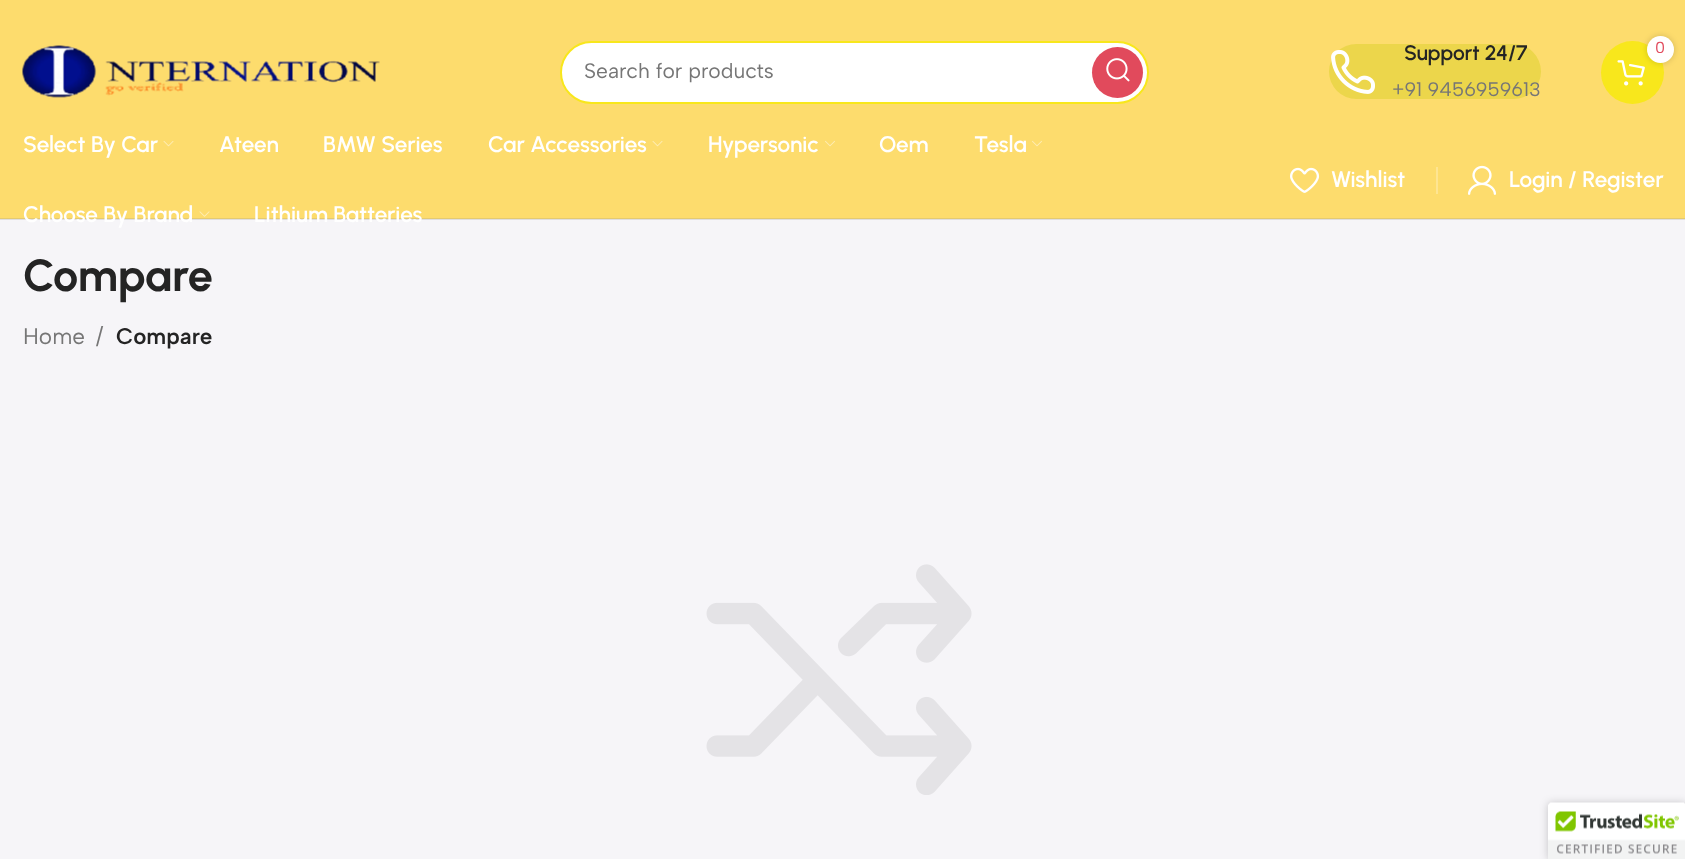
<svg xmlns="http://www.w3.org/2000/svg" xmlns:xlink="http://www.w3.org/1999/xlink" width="1685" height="859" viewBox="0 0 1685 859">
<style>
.cls-1{font:21px Albert Sans;fill:#767676}
.cls-2{font:600 21px Urbanist;fill:#242424}
.cls-3{font:19.5px Albert Sans;fill:#767676}
.cls-4{font:16px Albert Sans;fill:#e14a5c}
.cls-5{font:600 22.5px Urbanist;fill:#ffffff}
.cls-6{font:bold 45px Urbanist;fill:#242424}
.cls-7{font:22.5px Albert Sans;fill:#767676}
.cls-8{font:600 22.5px Albert Sans;fill:#242424}
</style>
<rect width="100%" height="100%" fill="#f6f5f8"/>
<rect fill="#fddc6d" x="0" y="0" width="1685" height="218"/>
<image xlink:href="image0.png" x="22" y="45" width="358" height="53"/>
<rect fill="#ffffff" stroke="#f8e71c" stroke-width="2" x="561" y="42" width="587" height="61" rx="30.5"/>
<circle fill="#e14a5c" cx="1117.5" cy="72.5" r="25.5"/>
<image xlink:href="image1.png" x="1106" y="58" width="24" height="24"/>
<rect fill="#ecd64b" x="1329" y="44" width="212" height="55" rx="27.5"/>
<image xlink:href="image2.png" x="1331" y="50" width="44" height="44"/>
<circle fill="#f8e71c" cx="1632.5" cy="72.5" r="31.5"/>
<image xlink:href="image3.png" x="1617" y="60" width="28" height="26"/>
<rect fill="#000000" fill-opacity="0.17" filter="blur(3px)" x="1647" y="36" width="27" height="27" rx="13.5"/>
<circle fill="#ffffff" cx="1660.5" cy="49.5" r="13.5"/>
<rect fill="#e4ca71" x="0" y="218" width="1685" height="1"/>
<image xlink:href="image4.png" x="163" y="141" width="11" height="6"/>
<image xlink:href="image4.png" x="652" y="141" width="11" height="6"/>
<image xlink:href="image5.png" x="825" y="140" width="10" height="7"/>
<image xlink:href="image5.png" x="1032" y="140" width="10" height="7"/>
<image xlink:href="image6.png" x="199" y="211" width="11" height="6"/>
<image xlink:href="image7.png" x="1290" y="167" width="30" height="26"/>
<rect fill="#fee592" x="1436" y="167" width="2" height="27"/>
<image xlink:href="image8.png" x="1468" y="165" width="28" height="30"/>
<rect fill="#dfdee0" x="0" y="219" width="1685" height="1"/>
<image xlink:href="image9.png" x="706" y="564" width="266" height="231"/>
<rect fill="#000000" fill-opacity="0.2" filter="blur(4px)" x="1548" y="803" width="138" height="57" rx="3"/>
<image xlink:href="image10.png" x="1548" y="802" width="137" height="57"/>
<text class="cls-1" x="584" y="78">Search for products</text>
<text class="cls-2" x="1404" y="60">Support 24/7</text>
<text class="cls-3" x="1392" y="96">+91 9456959613</text>
<text class="cls-4" x="1655" y="53">0</text>
<text class="cls-5" x="23" y="152">Select By Car</text>
<text class="cls-5" x="219" y="152">Ateen</text>
<text class="cls-5" x="323" y="152">BMW Series</text>
<text class="cls-5" x="488" y="152">Car Accessories</text>
<text class="cls-5" x="708" y="152">Hypersonic</text>
<text class="cls-5" x="879" y="152">Oem</text>
<text class="cls-5" x="974" y="152">Tesla</text>
<text class="cls-5" x="23" y="222">Choose By Brand</text>
<text class="cls-5" x="254" y="222">Lithium Batteries</text>
<text class="cls-5" x="1331" y="187">Wishlist</text>
<text class="cls-5" x="1509" y="187">Login / Register</text>
<text class="cls-6" x="23" y="291">Compare</text>
<text class="cls-7" x="23" y="344">Home</text>
<text class="cls-7" x="96" y="344">/</text>
<text class="cls-8" x="116" y="344">Compare</text>
</svg>
